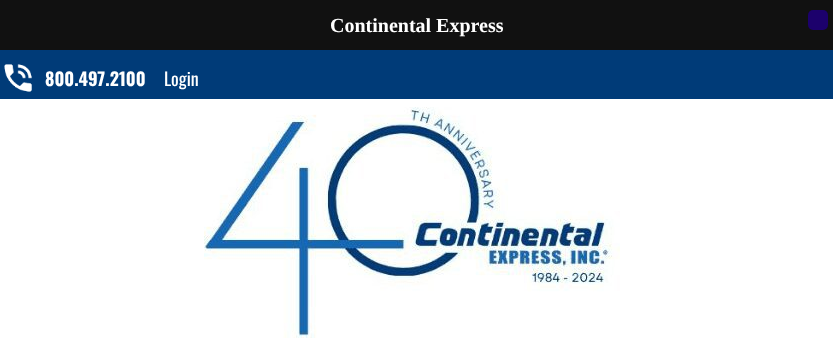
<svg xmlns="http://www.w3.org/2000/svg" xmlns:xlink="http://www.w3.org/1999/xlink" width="833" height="348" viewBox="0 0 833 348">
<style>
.cls-1{font:bold 20px Liberation Serif;fill:#ffffff}
.cls-2{font:bold 18px Oswald;fill:#ffffff}
.cls-3{font:18px Oswald;fill:#ffffff}
</style>
<rect width="100%" height="100%" fill="#ffffff"/>
<rect fill="#111111" x="0" y="0" width="833" height="50"/>
<rect fill="#1c016c" x="808" y="10" width="20" height="20" rx="5"/>
<rect fill="#003b78" x="0" y="50" width="833" height="49"/>
<image xlink:href="image0.png" x="4" y="64" width="28" height="28"/>
<image xlink:href="image1.png" x="204" y="107" width="416" height="231"/>
<text class="cls-1" x="330" y="32">Continental Express</text>
<text class="cls-2" x="45" y="86">800.497.2100</text>
<text class="cls-3" x="164" y="86">Login</text>
</svg>
